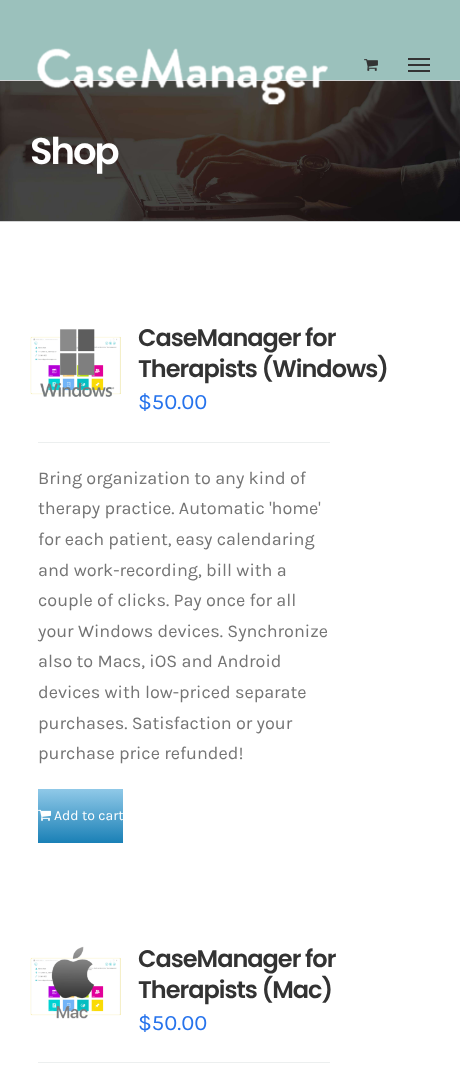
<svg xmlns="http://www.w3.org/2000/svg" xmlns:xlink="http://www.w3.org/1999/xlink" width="460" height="1071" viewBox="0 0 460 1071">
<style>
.cls-1{font:600 37px Poppins;letter-spacing:-2px;fill:#ffffff}
.cls-2{font:600 24px Poppins;letter-spacing:-1px;fill:#333333}
.cls-3{font:22px Karla;fill:#2673ec}
.cls-4{font:18px Karla;fill:#747474}
.cls-5{font:14px Karla;fill:#ffffff}
</style>
<defs>
<linearGradient id="g1" gradientUnits="userSpaceOnUse" x1="81" y1="843" x2="81" y2="789"><stop offset="0" stop-color="#1a80b6"/><stop offset="1" stop-color="#90c9e8"/></linearGradient>
</defs>
<rect width="100%" height="100%" fill="#ffffff"/>
<rect fill="#9bc1bc" x="0" y="0" width="460" height="80"/>
<image xlink:href="image2.png" x="0" y="81" width="460" height="140"/>
<rect fill="#d2d3d4" x="0" y="80" width="460" height="1"/>
<image xlink:href="image0.png" x="36" y="48" width="292" height="57"/>
<image xlink:href="image1.png" x="364" y="59" width="14" height="12"/>
<rect fill="#333333" x="408" y="58" width="22" height="2"/>
<rect fill="#333333" x="408" y="64" width="22" height="2"/>
<rect fill="#333333" x="408" y="70" width="22" height="2"/>
<rect fill="#d2d3d4" x="0" y="221" width="460" height="1"/>
<rect fill="#ecefef" x="38" y="442" width="292" height="1"/>
<rect fill="url(#g1)" x="38" y="789" width="85" height="54"/>
<image xlink:href="image3.png" x="38" y="809" width="13" height="12"/>
<image xlink:href="image4.png" x="30" y="329" width="91" height="68"/>
<image xlink:href="image5.png" x="30" y="946" width="91" height="73"/>
<rect fill="#ecefef" x="38" y="1062" width="292" height="1"/>
<text class="cls-1" x="30" y="164">Shop</text>
<text class="cls-2"><tspan x="138" y="346">CaseManager for</tspan><tspan x="138" y="377">Therapists (Windows)</tspan></text>
<text class="cls-3" x="138" y="409">$50.00</text>
<text class="cls-4"><tspan x="38" y="484">Bring organization to any kind of</tspan><tspan x="38" y="514">therapy practice. Automatic 'home'</tspan><tspan x="38" y="545">for each patient, easy calendaring</tspan><tspan x="38" y="576">and work-recording, bill with a</tspan><tspan x="38" y="606">couple of clicks. Pay once for all</tspan><tspan x="38" y="637">your Windows devices. Synchronize</tspan><tspan x="38" y="667">also to Macs, iOS and Android</tspan><tspan x="38" y="698">devices with low-priced separate</tspan><tspan x="38" y="729">purchases. Satisfaction or your</tspan><tspan x="38" y="759">purchase price refunded!</tspan></text>
<text class="cls-5" x="54" y="820">Add to cart</text>
<text class="cls-2"><tspan x="138" y="967">CaseManager for</tspan><tspan x="138" y="998">Therapists (Mac)</tspan></text>
<text class="cls-3" x="138" y="1030">$50.00</text>
</svg>
